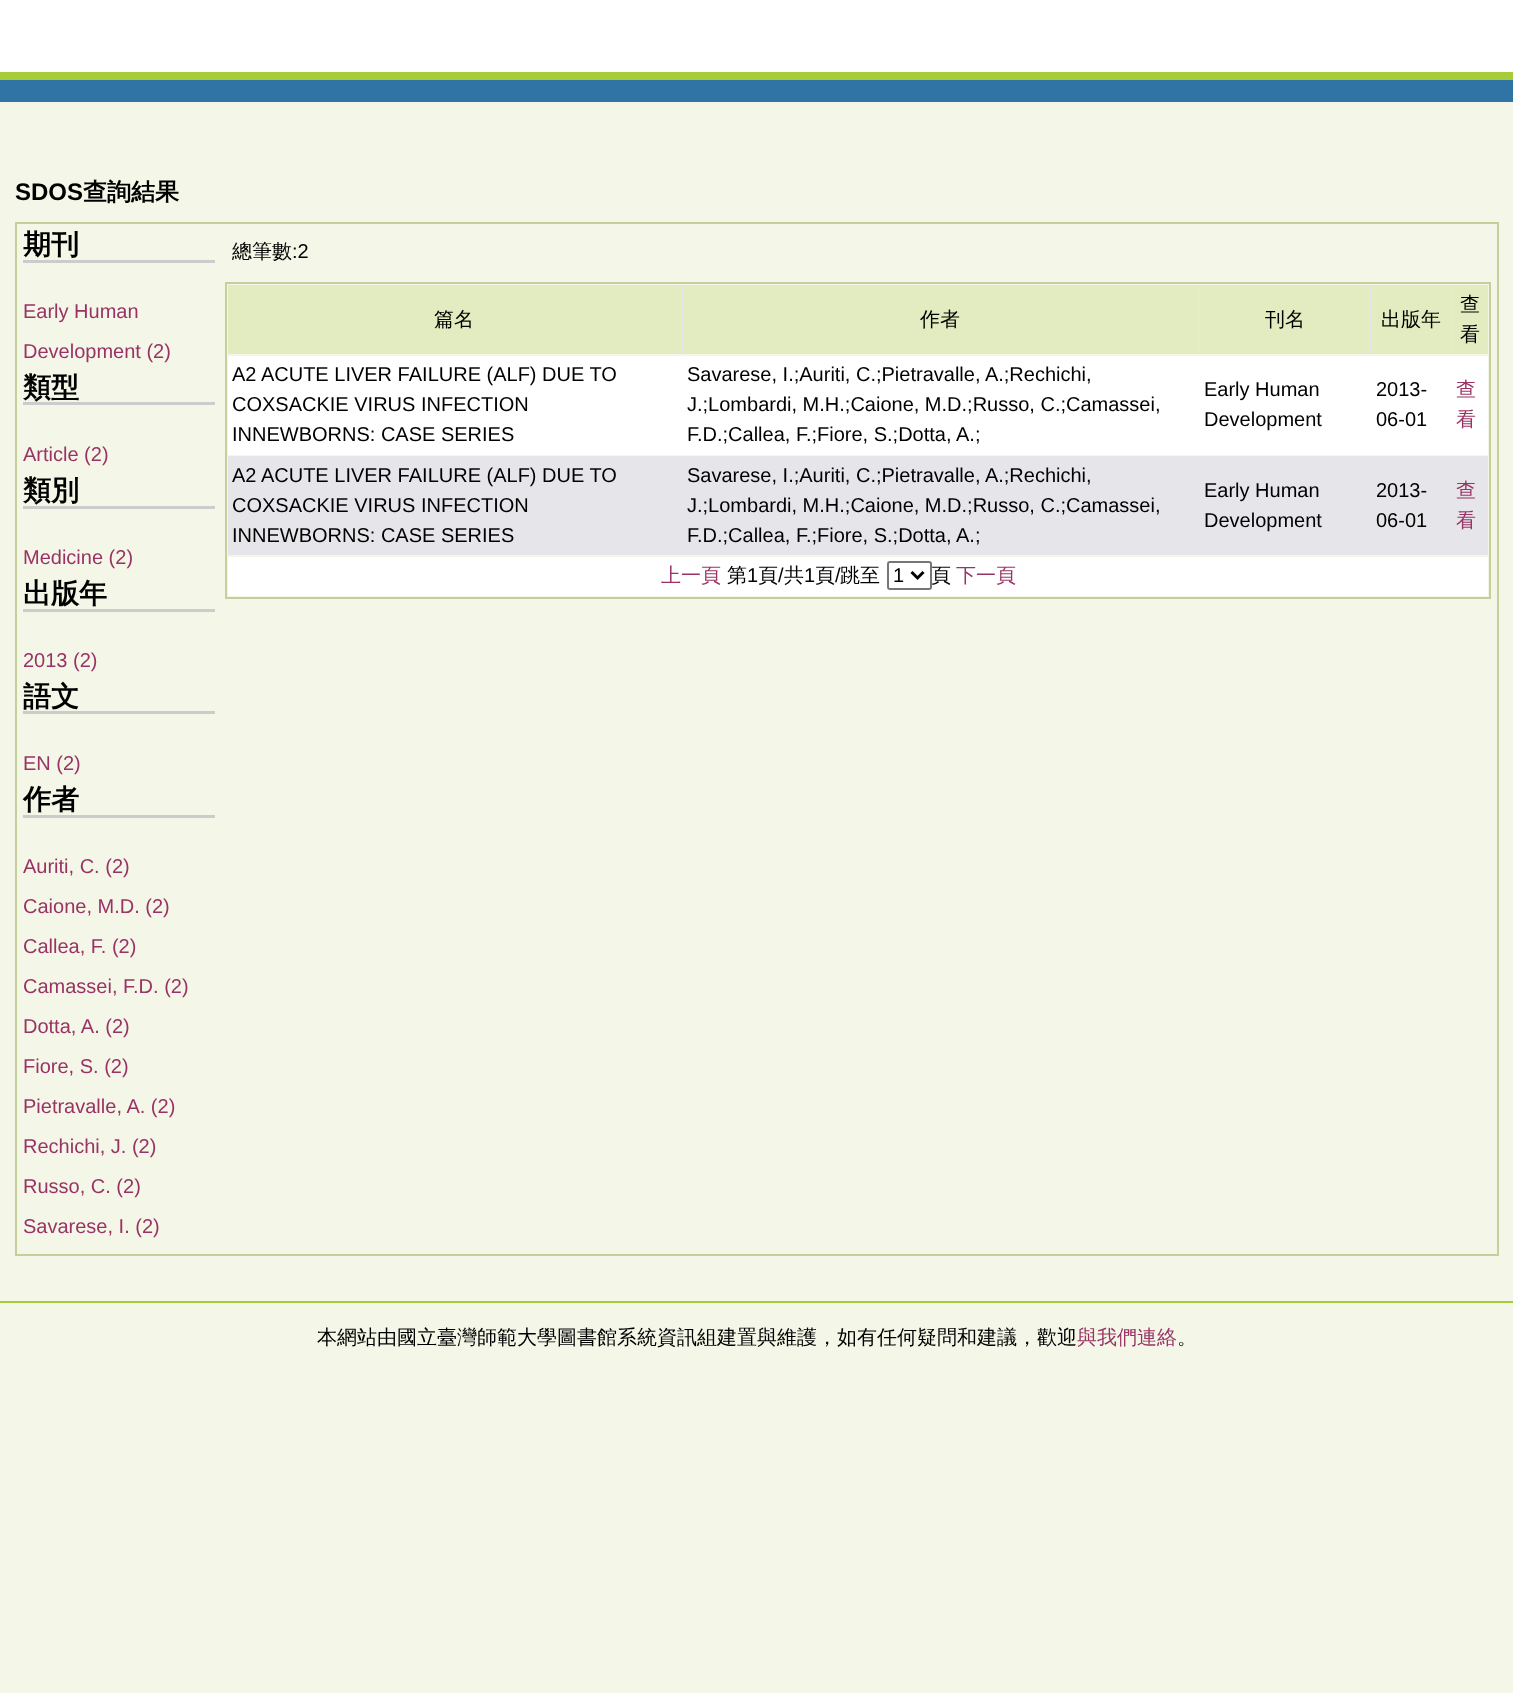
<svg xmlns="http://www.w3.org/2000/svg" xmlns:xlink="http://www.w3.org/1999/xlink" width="1513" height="1693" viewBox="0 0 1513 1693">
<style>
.cls-1{font:bold 24px Liberation Sans;fill:#000000}
.cls-2{font:bold 24px WenQuanYi Zen Hei;fill:#000000}
.cls-3{font:bold 28px WenQuanYi Zen Hei;fill:#000000}
.cls-4{font:20px Liberation Sans;fill:#993366}
.cls-5{font:500 20px WenQuanYi Zen Hei;fill:#000000}
.cls-6{font:20px Liberation Sans;fill:#000000}
.cls-7{font:500 20px WenQuanYi Zen Hei;fill:#993366}
</style>
<rect width="100%" height="100%" fill="#f4f7e7"/>
<rect fill="#ffffff" x="0" y="0" width="1513" height="72"/>
<rect fill="#a6cd37" x="0" y="72" width="1513" height="8"/>
<rect fill="#2f74a4" x="0" y="80" width="1513" height="22"/>
<rect fill="none" stroke="#c5cf9b" stroke-width="2" x="16" y="223" width="1482" height="1032"/>
<rect fill="#cccccc" x="23" y="260" width="192" height="3"/>
<rect fill="#cccccc" x="23" y="402" width="192" height="3"/>
<rect fill="#cccccc" x="23" y="506" width="192" height="3"/>
<rect fill="#cccccc" x="23" y="609" width="192" height="3"/>
<rect fill="#cccccc" x="23" y="711" width="192" height="3"/>
<rect fill="#cccccc" x="23" y="815" width="192" height="3"/>
<rect fill="none" stroke="#c5cf9b" stroke-width="2" x="226" y="283" width="1264" height="315"/>
<rect fill="#e6e6ea" x="681" y="285" width="771" height="69"/>
<rect fill="#e3ecc0" x="228" y="285" width="453" height="69"/>
<rect fill="#e3ecc0" x="683" y="285" width="516" height="69"/>
<rect fill="#e3ecc0" x="1200" y="285" width="170" height="69"/>
<rect fill="#e3ecc0" x="1371" y="285" width="80" height="69"/>
<rect fill="#e3ecc0" x="1452" y="285" width="36" height="69"/>
<rect fill="#ffffff" x="228" y="356" width="1260" height="99"/>
<rect fill="#e6e6ea" x="228" y="456" width="1260" height="99"/>
<rect fill="#ffffff" x="228" y="557" width="1260" height="39"/>
<rect fill="none" stroke="#767676" stroke-width="2" x="888" y="562" width="43" height="27" rx="2"/>
<path fill="none" stroke="#000000" stroke-width="3" d="M911.5 572L917.5 578L923.5 572"/>
<rect fill="#a6cd37" x="0" y="1301" width="1513" height="2"/>
<text class="cls-1" x="15" y="200">SDOS</text>
<text class="cls-2" x="83" y="200">查詢結果</text>
<text class="cls-3" x="23" y="254">期刊</text>
<text class="cls-4" x="23" y="318">Early Human</text>
<text class="cls-4" x="23" y="358">Development (2)</text>
<text class="cls-3" x="23" y="397">類型</text>
<text class="cls-4" x="23" y="461">Article (2)</text>
<text class="cls-3" x="23" y="500">類別</text>
<text class="cls-4" x="23" y="564">Medicine (2)</text>
<text class="cls-3" x="23" y="603">出版年</text>
<text class="cls-4" x="23" y="667">2013 (2)</text>
<text class="cls-3" x="23" y="706">語文</text>
<text class="cls-4" x="23" y="770">EN (2)</text>
<text class="cls-3" x="23" y="809">作者</text>
<text class="cls-4" x="23" y="873">Auriti, C. (2)</text>
<text class="cls-4" x="23" y="913">Caione, M.D. (2)</text>
<text class="cls-4" x="23" y="953">Callea, F. (2)</text>
<text class="cls-4" x="23" y="993">Camassei, F.D. (2)</text>
<text class="cls-4" x="23" y="1033">Dotta, A. (2)</text>
<text class="cls-4" x="23" y="1073">Fiore, S. (2)</text>
<text class="cls-4" x="23" y="1113">Pietravalle, A. (2)</text>
<text class="cls-4" x="23" y="1153">Rechichi, J. (2)</text>
<text class="cls-4" x="23" y="1193">Russo, C. (2)</text>
<text class="cls-4" x="23" y="1233">Savarese, I. (2)</text>
<text class="cls-5" x="232" y="258">總筆數</text>
<text class="cls-6" x="292" y="258">:2</text>
<text class="cls-5" x="434" y="326">篇名</text>
<text class="cls-5" x="920" y="326">作者</text>
<text class="cls-5" x="1265" y="326">刊名</text>
<text class="cls-5" x="1381" y="326">出版年</text>
<text class="cls-5"><tspan x="1460" y="311">查</tspan><tspan x="1460" y="341">看</tspan></text>
<text class="cls-6"><tspan x="232" y="381">A2 ACUTE LIVER FAILURE (ALF) DUE TO</tspan><tspan x="232" y="411">COXSACKIE VIRUS INFECTION</tspan><tspan x="232" y="441">INNEWBORNS: CASE SERIES</tspan></text>
<text class="cls-6"><tspan x="687" y="381">Savarese, I.;Auriti, C.;Pietravalle, A.;Rechichi,</tspan><tspan x="687" y="411">J.;Lombardi, M.H.;Caione, M.D.;Russo, C.;Camassei,</tspan><tspan x="687" y="441">F.D.;Callea, F.;Fiore, S.;Dotta, A.;</tspan></text>
<text class="cls-6"><tspan x="1204" y="396">Early Human</tspan><tspan x="1204" y="426">Development</tspan></text>
<text class="cls-6"><tspan x="1376" y="396">2013-</tspan><tspan x="1376" y="426">06-01</tspan></text>
<text class="cls-7"><tspan x="1456" y="396">查</tspan><tspan x="1456" y="426">看</tspan></text>
<text class="cls-6"><tspan x="232" y="482">A2 ACUTE LIVER FAILURE (ALF) DUE TO</tspan><tspan x="232" y="512">COXSACKIE VIRUS INFECTION</tspan><tspan x="232" y="542">INNEWBORNS: CASE SERIES</tspan></text>
<text class="cls-6"><tspan x="687" y="482">Savarese, I.;Auriti, C.;Pietravalle, A.;Rechichi,</tspan><tspan x="687" y="512">J.;Lombardi, M.H.;Caione, M.D.;Russo, C.;Camassei,</tspan><tspan x="687" y="542">F.D.;Callea, F.;Fiore, S.;Dotta, A.;</tspan></text>
<text class="cls-6"><tspan x="1204" y="497">Early Human</tspan><tspan x="1204" y="527">Development</tspan></text>
<text class="cls-6"><tspan x="1376" y="497">2013-</tspan><tspan x="1376" y="527">06-01</tspan></text>
<text class="cls-7"><tspan x="1456" y="497">查</tspan><tspan x="1456" y="527">看</tspan></text>
<text class="cls-7" x="661" y="582">上一頁</text>
<text class="cls-5" x="727" y="582">第</text>
<text class="cls-6" x="747" y="582">1</text>
<text class="cls-5" x="758" y="582">頁</text>
<text class="cls-6" x="778" y="582">/</text>
<text class="cls-5" x="784" y="582">共</text>
<text class="cls-6" x="804" y="582">1</text>
<text class="cls-5" x="815" y="582">頁</text>
<text class="cls-6" x="835" y="582">/</text>
<text class="cls-5" x="840" y="582">跳至</text>
<text class="cls-6" x="893" y="582">1</text>
<text class="cls-5" x="931" y="582">頁</text>
<text class="cls-7" x="956" y="582">下一頁</text>
<text class="cls-5" x="317" y="1344">本網站由國立臺灣師範大學圖書館系統資訊組建置與維護，如有任何疑問和建議，歡迎</text>
<text class="cls-7" x="1077" y="1344">與我們連絡</text>
<text class="cls-5" x="1177" y="1344">。</text>
</svg>
